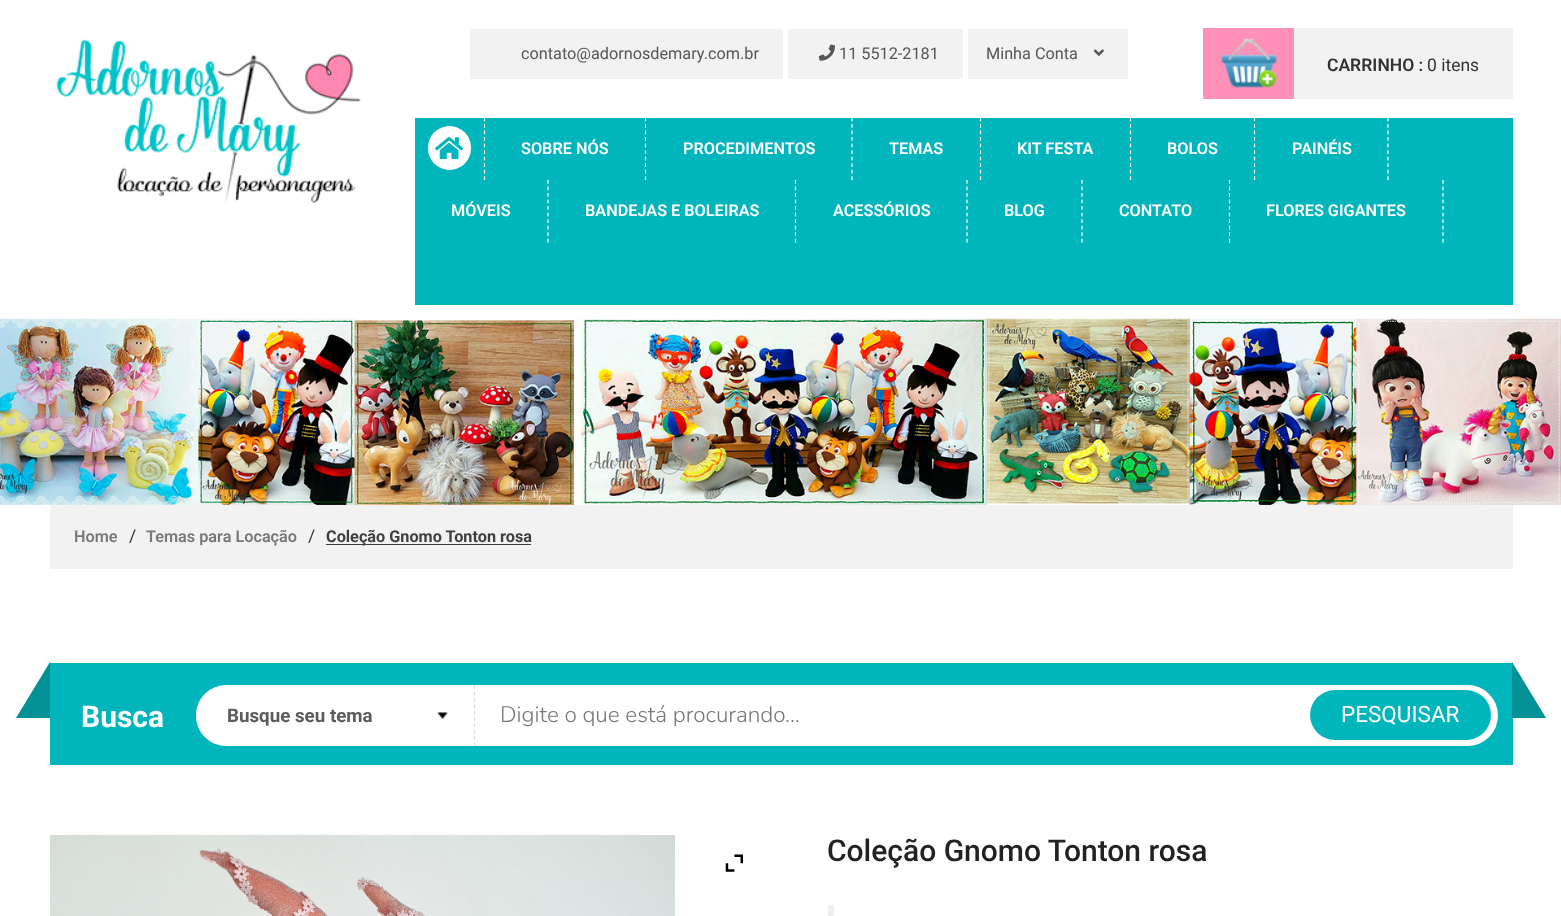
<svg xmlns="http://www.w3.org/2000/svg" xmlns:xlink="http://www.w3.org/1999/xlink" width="1561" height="916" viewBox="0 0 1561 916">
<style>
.cls-1{font:16.25px Roboto;fill:#55555a}
.cls-2{font:600 17.5px Roboto;fill:#333333}
.cls-3{font:17.5px Roboto;fill:#333333}
.cls-4{font:600 16.25px Roboto;fill:#ffffff}
.cls-5{font:600 16.25px Roboto;fill:#787878}
.cls-6{font:bold 16.25px Roboto;fill:#3e3e3e}
.cls-7{font:bold 30px Roboto;fill:#ffffff}
.cls-8{font:bold 18.75px Roboto;fill:#5c5c5c}
.cls-9{font:300 22.5px Nunito;fill:#787878}
.cls-10{font:22.5px Roboto;fill:#ffffff}
.cls-11{font:500 30px Roboto;fill:#222222}
</style>
<defs>
<clipPath id="clip1"><rect x="196" y="685" width="1302" height="61" rx="30.5"/></clipPath>
</defs>
<rect width="100%" height="100%" fill="#ffffff"/>
<image xlink:href="image0.png" x="56" y="39" width="305" height="164"/>
<rect fill="#f2f2f2" x="470" y="29" width="313" height="50"/>
<rect fill="#f2f2f2" x="788" y="29" width="175" height="50"/>
<image xlink:href="image1.png" x="818" y="44" width="17" height="17"/>
<rect fill="#f2f2f2" x="968" y="29" width="160" height="50"/>
<image xlink:href="image2.png" x="1093" y="49" width="11" height="7"/>
<rect fill="#ff91b8" x="1203" y="28" width="91" height="71"/>
<image xlink:href="image3.png" x="1221" y="38" width="56" height="50"/>
<rect fill="#f2f2f2" x="1294" y="28" width="219" height="71"/>
<rect fill="#00b6bc" x="415" y="118" width="1098" height="187"/>
<path fill="none" stroke="#ffffff" stroke-width="1.2" stroke-dasharray="3.75 2.78" d="M484.5 117.5V180"/>
<rect fill="#ffffff" x="428" y="126" width="43" height="44" rx="21.5"/>
<image xlink:href="image4.png" x="435" y="137" width="29" height="23"/>
<path fill="none" stroke="#ffffff" stroke-width="1.2" stroke-dasharray="3.75 2.78" d="M645.5 117.5V180"/>
<path fill="none" stroke="#ffffff" stroke-width="1.2" stroke-dasharray="3.75 2.78" d="M852 117.5V180"/>
<path fill="none" stroke="#ffffff" stroke-width="1.2" stroke-dasharray="3.75 2.78" d="M980.5 117.5V180"/>
<path fill="none" stroke="#ffffff" stroke-width="1.2" stroke-dasharray="3.75 2.78" d="M1130.5 117.5V180"/>
<path fill="none" stroke="#ffffff" stroke-width="1.2" stroke-dasharray="3.75 2.78" d="M1254.5 117.5V180"/>
<path fill="none" stroke="#ffffff" stroke-width="1.2" stroke-dasharray="3.75 2.78" d="M1388 117.5V180"/>
<path fill="none" stroke="#ffffff" stroke-width="1.2" stroke-dasharray="3.75 2.78" d="M548 180V242.5"/>
<path fill="none" stroke="#ffffff" stroke-width="1.2" stroke-dasharray="3.75 2.78" d="M795.5 180V242.5"/>
<path fill="none" stroke="#ffffff" stroke-width="1.2" stroke-dasharray="3.75 2.78" d="M967 180V242.5"/>
<path fill="none" stroke="#ffffff" stroke-width="1.2" stroke-dasharray="3.75 2.78" d="M1082 180V242.5"/>
<path fill="none" stroke="#ffffff" stroke-width="1.2" stroke-dasharray="3.75 2.78" d="M1229.5 180V242.5"/>
<path fill="none" stroke="#ffffff" stroke-width="1.2" stroke-dasharray="3.75 2.78" d="M1443 180V242.5"/>
<image xlink:href="image5.png" x="0" y="318" width="1561" height="187"/>
<rect fill="#f2f2f2" x="50" y="505" width="1463" height="64"/>
<rect fill="#3e3e3e" x="326" y="544" width="205" height="1"/>
<rect fill="#00b6bc" x="50" y="663" width="1463" height="102"/>
<path fill="#029196" d="M50 662V718H16Z"/>
<rect fill="#ffffff" x="196" y="685" width="1302" height="61" rx="30.5"/>
<g clip-path="url(#clip1)">
<rect fill="#ffffff" x="196" y="689" width="273" height="55"/>
</g>
<image xlink:href="image6.png" x="437" y="712" width="11" height="7"/>
<path fill="none" stroke="#dddddd" stroke-width="1.2" stroke-dasharray="3.75 2.64" d="M474.5 685V746"/>
<rect fill="#00b6bc" x="1310" y="690" width="181" height="50" rx="25"/>
<path fill="#029196" d="M1512 718V662L1546 718Z"/>
<image xlink:href="image7.png" x="50" y="835" width="625" height="81"/>
<image xlink:href="image8.png" x="725" y="854" width="18" height="18"/>
<rect fill="#eeeeee" x="828" y="905" width="6" height="11"/>
<text class="cls-1" x="521" y="59">contato@adornosdemary.com.br</text>
<text class="cls-1" x="839" y="59">11 5512-2181</text>
<text class="cls-1" x="986" y="59">Minha Conta</text>
<text class="cls-2" x="1327" y="71">CARRINHO :</text>
<text class="cls-3" x="1427" y="71">0 itens</text>
<text class="cls-4" x="521" y="154">SOBRE NÓS</text>
<text class="cls-4" x="683" y="154">PROCEDIMENTOS</text>
<text class="cls-4" x="889" y="154">TEMAS</text>
<text class="cls-4" x="1017" y="154">KIT FESTA</text>
<text class="cls-4" x="1167" y="154">BOLOS</text>
<text class="cls-4" x="1292" y="154">PAINÉIS</text>
<text class="cls-4" x="451" y="216">MÓVEIS</text>
<text class="cls-4" x="585" y="216">BANDEJAS E BOLEIRAS</text>
<text class="cls-4" x="833" y="216">ACESSÓRIOS</text>
<text class="cls-4" x="1004" y="216">BLOG</text>
<text class="cls-4" x="1119" y="216">CONTATO</text>
<text class="cls-4" x="1266" y="216">FLORES GIGANTES</text>
<text class="cls-5" x="74" y="542">Home</text>
<text class="cls-3" x="129" y="542">/</text>
<text class="cls-5" x="146" y="542">Temas para Locação</text>
<text class="cls-3" x="308" y="542">/</text>
<text class="cls-6" x="326" y="542">Coleção Gnomo Tonton rosa</text>
<text class="cls-7" x="81" y="727">Busca</text>
<text class="cls-8" x="227" y="722">Busque seu tema</text>
<text class="cls-9" x="500" y="722">Digite o que está procurando...</text>
<text class="cls-10" x="1341" y="722">PESQUISAR</text>
<text class="cls-11" x="827" y="861">Coleção Gnomo Tonton rosa</text>
</svg>
